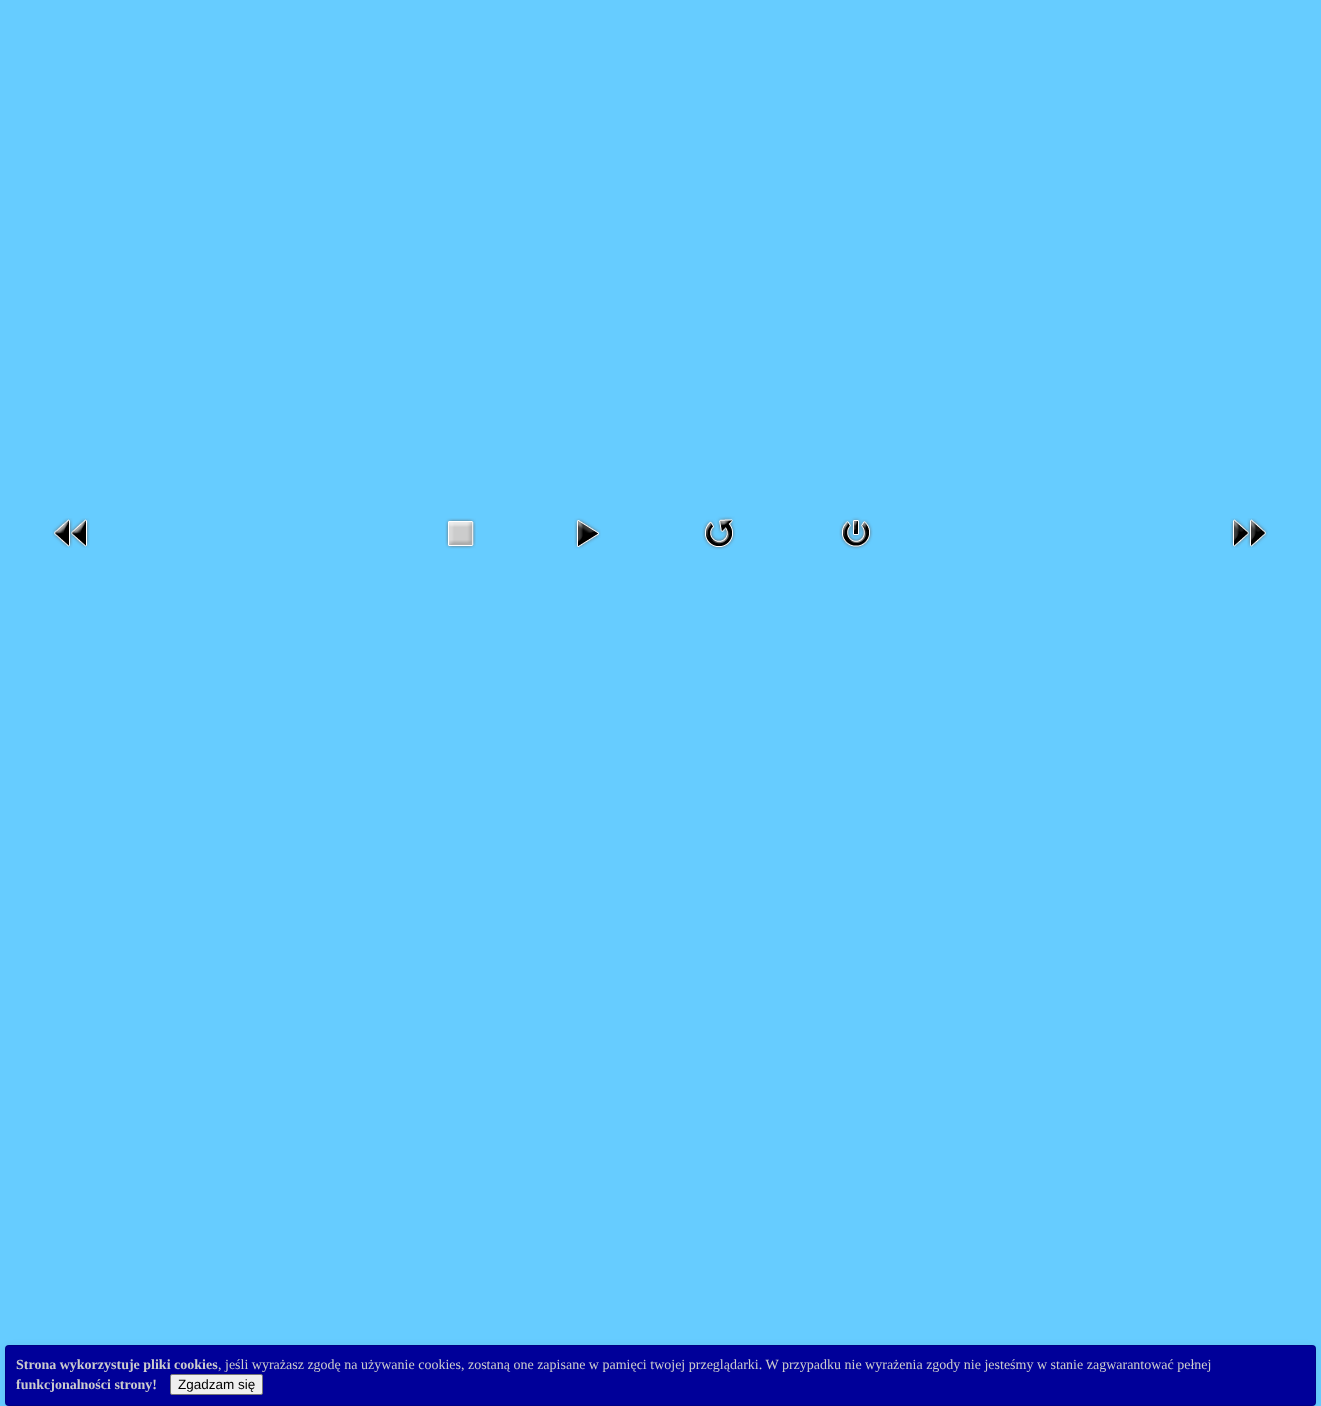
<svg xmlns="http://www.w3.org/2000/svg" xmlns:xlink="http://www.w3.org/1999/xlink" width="1321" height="1406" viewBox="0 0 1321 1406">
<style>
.cls-1{font:bold 14px Liberation Serif;fill:#cccccc}
.cls-2{font:14px Liberation Serif;fill:#cccccc}
.cls-3{font:13.5px Liberation Sans;fill:#000000}
</style>
<rect width="100%" height="100%" fill="#66ccff"/>
<image xlink:href="image0.png" x="52" y="518" width="38" height="30"/>
<image xlink:href="image1.png" x="445" y="518" width="31" height="31"/>
<image xlink:href="image2.png" x="574" y="518" width="27" height="31"/>
<image xlink:href="image3.png" x="702" y="516" width="34" height="34"/>
<image xlink:href="image4.png" x="839" y="517" width="34" height="33"/>
<image xlink:href="image5.png" x="1230" y="518" width="38" height="30"/>
<rect fill="#000000" fill-opacity="0.05" filter="blur(3px)" x="5" y="1345" width="1311" height="61" rx="4"/>
<rect fill="#000099" x="5" y="1345" width="1311" height="61" rx="4"/>
<rect fill="none" stroke="#000000" stroke-opacity="0.15" x="5.5" y="1345.5" width="1310" height="60" rx="3.5"/>
<rect fill="#efefef" stroke="#767676" x="170.5" y="1374.5" width="92" height="20" rx="1.5"/>
<text class="cls-1" x="16" y="1369">Strona wykorzystuje pliki cookies</text>
<text class="cls-2" x="218" y="1369">, jeśli wyrażasz zgodę na używanie cookies, zostaną one zapisane w pamięci twojej przeglądarki. W przypadku nie wyrażenia zgody nie jesteśmy w stanie zagwarantować pełnej</text>
<text class="cls-1" x="16" y="1389">funkcjonalności strony!</text>
<text class="cls-3" x="178" y="1389">Zgadzam się</text>
</svg>
